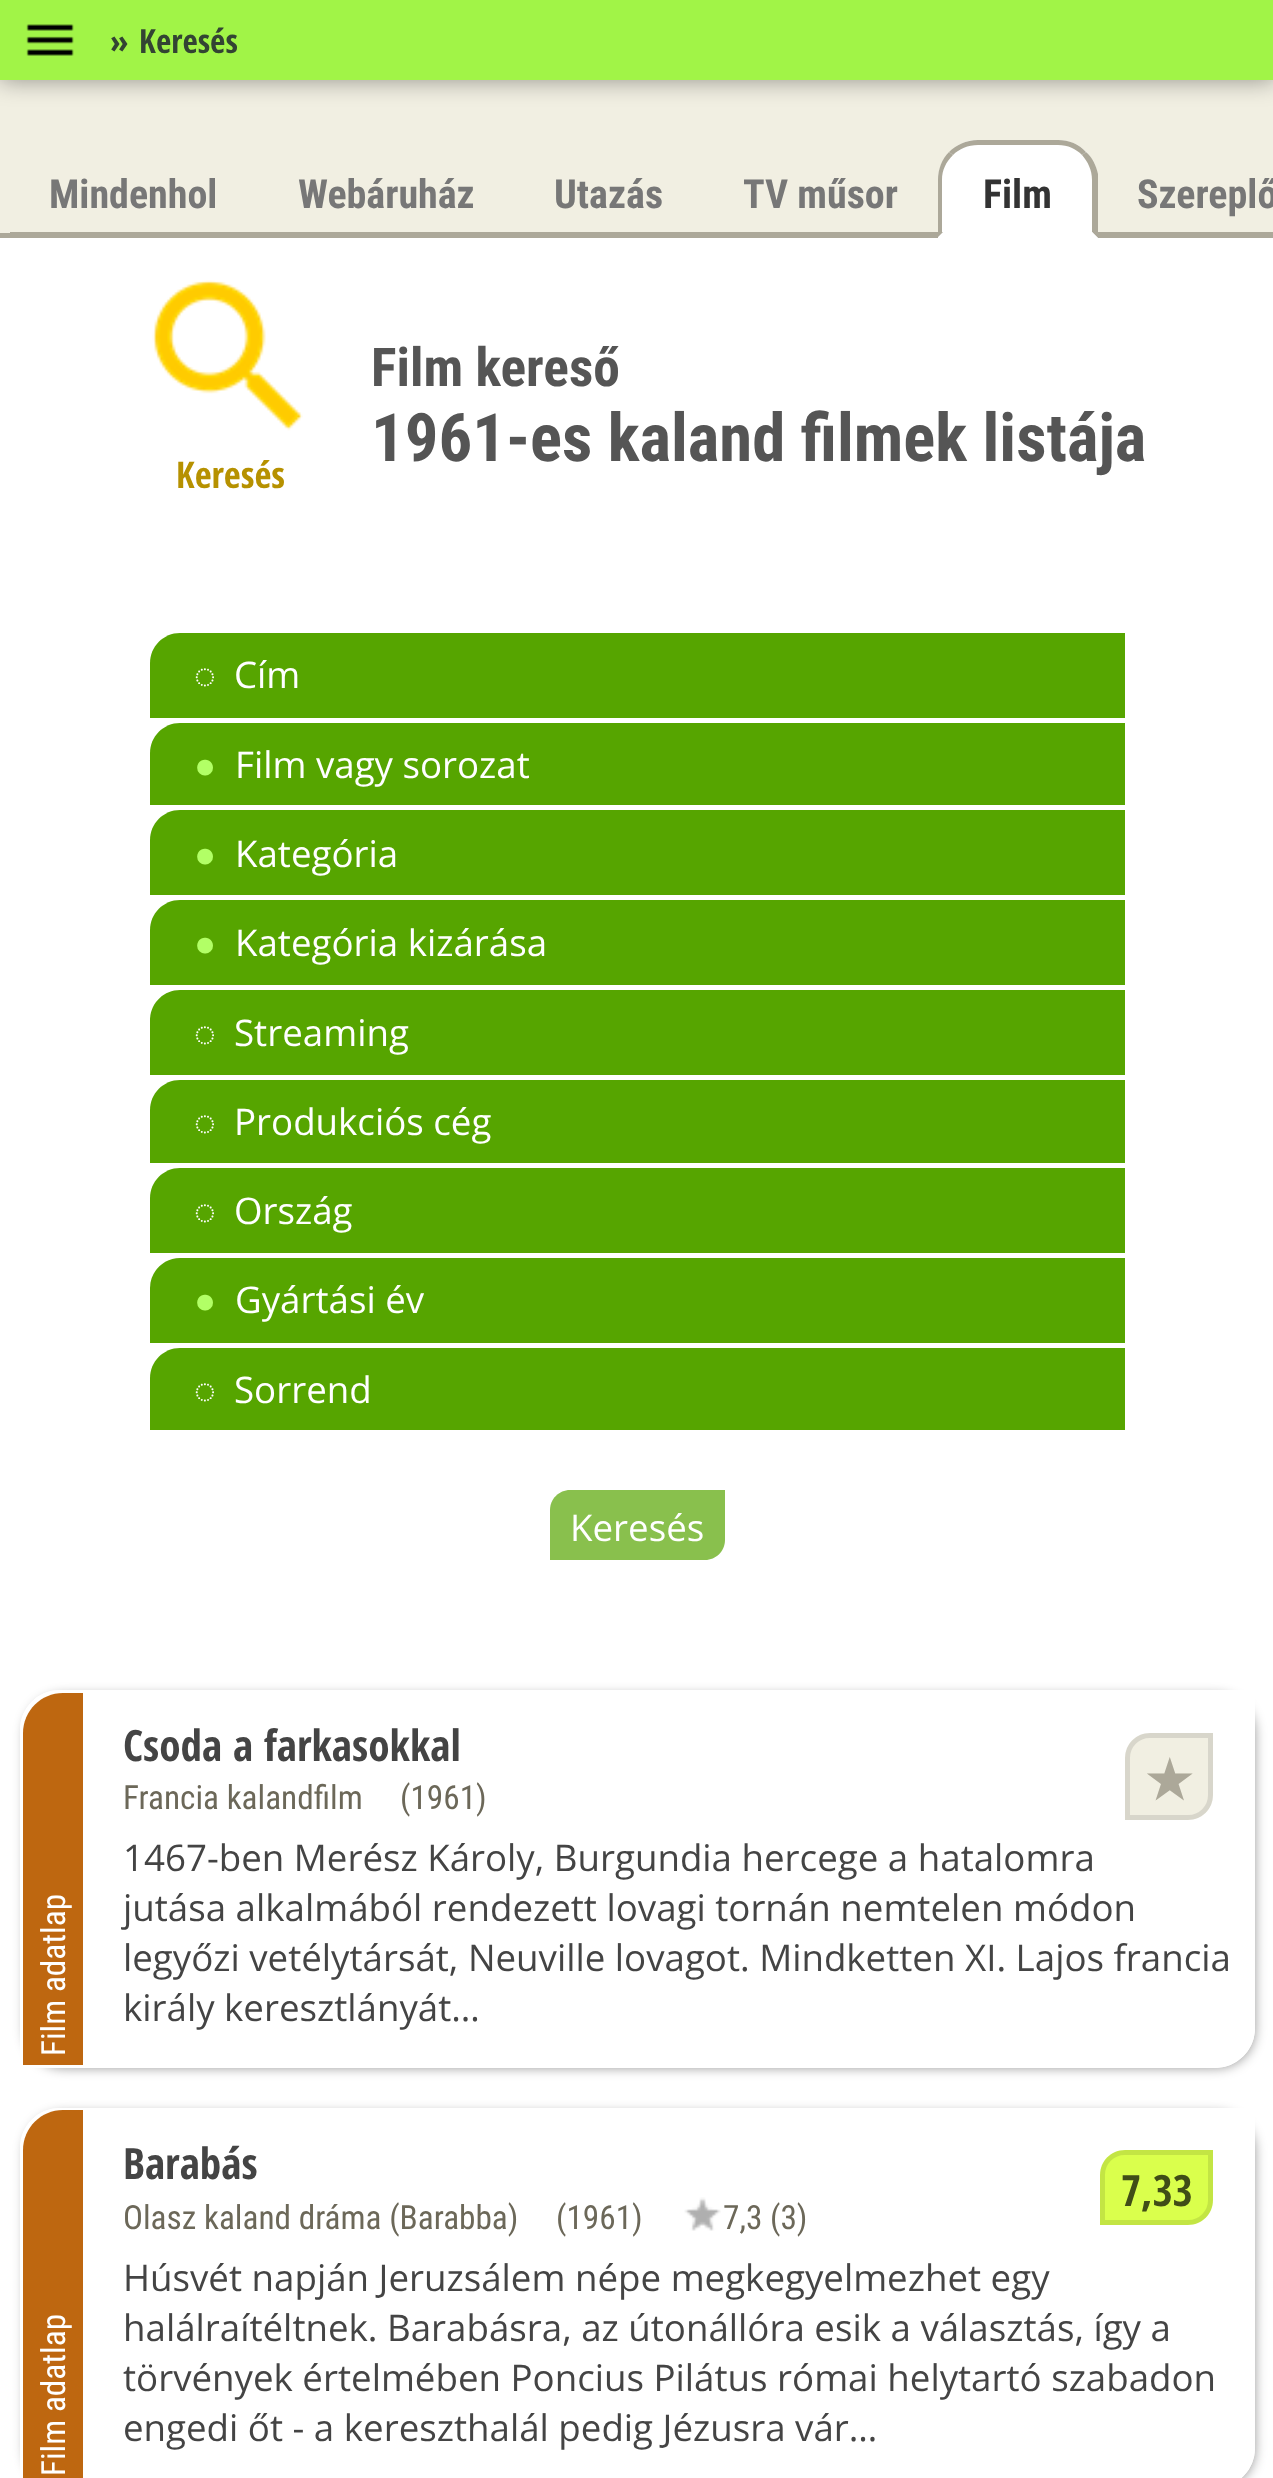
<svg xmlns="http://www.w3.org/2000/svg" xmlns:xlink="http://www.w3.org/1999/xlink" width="1273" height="2478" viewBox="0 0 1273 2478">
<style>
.cls-1{font:bold 33.25px Open Sans Condensed;fill:#334433}
.cls-2{font:bold 40px Roboto Condensed;fill:#777777}
.cls-3{font:bold 40px Roboto Condensed;fill:#333333}
.cls-4{font:bold 36.7px Open Sans Condensed;fill:#b69100}
.cls-5{font:bold 53.5px Roboto Condensed;fill:#555555}
.cls-6{font:bold 66.75px Roboto Condensed;fill:#555555}
.cls-7{font:36.7px Liberation Serif;fill:#ffffff}
.cls-8{font:36.7px Open Sans;fill:#ffffff}
.cls-9{font:36.7px Liberation Serif;fill:#b2ff66}
.cls-10{font:33.25px Roboto Condensed;fill:#ffffff}
.cls-11{font:bold 43.25px Open Sans Condensed;fill:#444444}
.cls-12{font:33.25px Roboto Condensed;fill:#6c6859}
.cls-13{font:bold 53.5px DejaVu Sans;fill:#aca899}
.cls-14{font:36.7px Open Sans;fill:#444444}
.cls-15{font:bold 43.25px Open Sans Condensed;fill:#414d17}
</style>
<defs>
<clipPath id="clip1"><path d="M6 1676H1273V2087H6ZM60 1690H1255V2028C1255 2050 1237 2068 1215 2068H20V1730C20 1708 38 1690 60 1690Z" clip-rule="evenodd"/></clipPath>
<clipPath id="clip2"><path d="M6 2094H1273V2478H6ZM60 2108H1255V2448C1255 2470 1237 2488 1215 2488H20V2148C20 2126 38 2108 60 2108Z" clip-rule="evenodd"/></clipPath>
</defs>
<rect width="100%" height="100%" fill="#ffffff"/>
<rect fill="#f1efe2" x="0" y="80" width="1273" height="153"/>
<rect fill="#000000" fill-opacity="0.4" filter="blur(12.5px)" x="0" y="0" width="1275" height="80"/>
<rect fill="#a1f447" x="0" y="0" width="1273" height="80"/>
<image xlink:href="image0.png" x="26" y="24" width="48" height="32"/>
<rect fill="#aca899" x="10" y="232" width="928" height="6"/>
<path fill="#ffffff" d="M978 140H1058C1080 140 1098 158 1098 180V238H938V180C938 158 956 140 978 140Z"/>
<path fill="#aca899" d="M978 140C966 140 956 145 949 152L953 155C959 149 968 145 978 145H1058C1068 145 1076 149 1082 155L1086 152C1079 144 1069 140 1058 140Z"/>
<path fill="#aca899" d="M1086 152C1092 157 1096 165 1098 174V238L1092 232V180C1092 170 1088 162 1082 155Z"/>
<path fill="#ffffff" d="M1098 238H938L943 232H1092Z"/>
<path fill="#aca899" d="M949 152C942 159 938 169 938 180V237L943 232H942V180C942 170 946 162 953 155Z"/>
<rect fill="#aca899" x="1098" y="232" width="175" height="6"/>
<rect fill="#aca899" x="0" y="233" width="10" height="5"/>
<image xlink:href="image1.png" x="152" y="280" width="151" height="151"/>
<path fill="#56a500" d="M180 633H1125V718H150V663C150 646.5 163.5 633 180 633Z"/>
<path fill="#56a500" d="M180 723H1125V805H150V753C150 736.5 163.5 723 180 723Z"/>
<path fill="#56a500" d="M180 810H1125V895H150V840C150 823.5 163.5 810 180 810Z"/>
<path fill="#56a500" d="M180 900H1125V985H150V930C150 913.5 163.5 900 180 900Z"/>
<path fill="#56a500" d="M180 990H1125V1075H150V1020C150 1003.5 163.5 990 180 990Z"/>
<path fill="#56a500" d="M180 1080H1125V1163H150V1110C150 1093.5 163.5 1080 180 1080Z"/>
<path fill="#56a500" d="M180 1168H1125V1253H150V1198C150 1181.5 163.5 1168 180 1168Z"/>
<path fill="#56a500" d="M180 1258H1125V1343H150V1288C150 1271.5 163.5 1258 180 1258Z"/>
<path fill="#56a500" d="M180 1348H1125V1430H150V1378C150 1361.5 163.5 1348 180 1348Z"/>
<path fill="#89c04d" d="M570 1490H725V1540C725 1551 716 1560 705 1560H550V1510C550 1499 559 1490 570 1490Z"/>
<g clip-path="url(#clip1)">
<rect fill="#000000" fill-opacity="0.4" filter="blur(6px)" x="25" y="1695" width="1230" height="373" rx="38"/>
</g>
<path fill="none" stroke="#ffffff" stroke-width="3" d="M60 1691.5H1253.5V2028C1253.5 2049.5 1236.5 2066.5 1215 2066.5H21.5V1730C21.5 1708.5 38.5 1691.5 60 1691.5Z"/>
<path fill="#be6710" d="M63 1693H83V2065H23V1733C23 1711 41 1693 63 1693Z"/>
<path fill="#f1efe2" d="M1150 1733H1213V1795C1213 1809 1202 1820 1188 1820H1125V1758C1125 1744 1136 1733 1150 1733Z"/>
<path fill="none" stroke="#000000" stroke-opacity="0.1" stroke-width="5" d="M1150 1735.5H1210.5V1795C1210.5 1807.5 1200.5 1817.5 1188 1817.5H1127.5V1758C1127.5 1745.5 1137.5 1735.5 1150 1735.5Z"/>
<g clip-path="url(#clip2)">
<rect fill="#000000" fill-opacity="0.4" filter="blur(6px)" x="25" y="2113" width="1230" height="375" rx="38"/>
</g>
<path fill="none" stroke="#ffffff" stroke-width="3" d="M60 2109.5H1253.5V2448C1253.5 2469.5 1236.5 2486.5 1215 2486.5H21.5V2148C21.5 2126.5 38.5 2109.5 60 2109.5Z"/>
<path fill="#be6710" d="M63 2110H83V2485H23V2150C23 2128 41 2110 63 2110Z"/>
<path fill="#daff4c" d="M1125 2150H1213V2200C1213 2214 1202 2225 1188 2225H1100V2175C1100 2161 1111 2150 1125 2150Z"/>
<path fill="none" stroke="#000000" stroke-opacity="0.1" stroke-width="5" d="M1125 2152.5H1210.5V2200C1210.5 2212.5 1200.5 2222.5 1188 2222.5H1102.5V2175C1102.5 2162.5 1112.5 2152.5 1125 2152.5Z"/>
<image xlink:href="image2.png" x="684" y="2197" width="37" height="34"/>
<text class="cls-1" x="110" y="53">»</text>
<text class="cls-1" x="139" y="53">Keresés</text>
<text class="cls-2" x="49" y="208">Mindenhol</text>
<text class="cls-2" x="298" y="208">Webáruház</text>
<text class="cls-2" x="554" y="208">Utazás</text>
<text class="cls-2" x="743" y="208">TV műsor</text>
<text class="cls-3" x="983" y="208">Film</text>
<text class="cls-2" x="1137" y="208">Szereplő</text>
<text class="cls-4" x="176" y="488">Keresés</text>
<text class="cls-5" x="371" y="386">Film kereső</text>
<text class="cls-6" x="371" y="461">1961-es kaland filmek listája</text>
<text class="cls-7" x="194" y="688">◌</text>
<text class="cls-8" x="234" y="688">Cím</text>
<text class="cls-9" x="194" y="778">●</text>
<text class="cls-8" x="235" y="778">Film vagy sorozat</text>
<text class="cls-9" x="194" y="867">●</text>
<text class="cls-8" x="235" y="867">Kategória</text>
<text class="cls-9" x="194" y="956">●</text>
<text class="cls-8" x="235" y="956">Kategória kizárása</text>
<text class="cls-7" x="194" y="1046">◌</text>
<text class="cls-8" x="234" y="1046">Streaming</text>
<text class="cls-7" x="194" y="1135">◌</text>
<text class="cls-8" x="234" y="1135">Produkciós cég</text>
<text class="cls-7" x="194" y="1224">◌</text>
<text class="cls-8" x="234" y="1224">Ország</text>
<text class="cls-9" x="194" y="1313">●</text>
<text class="cls-8" x="235" y="1313">Gyártási év</text>
<text class="cls-7" x="194" y="1403">◌</text>
<text class="cls-8" x="234" y="1403">Sorrend</text>
<text class="cls-8" x="570" y="1541">Keresés</text>
<text class="cls-10" x="65" y="2056" transform="rotate(-90 65 2056)">Film adatlap</text>
<text class="cls-11" x="123" y="1761">Csoda a farkasokkal</text>
<text class="cls-12" x="123" y="1809">Francia kalandfilm</text>
<text class="cls-12" x="400" y="1809">(1961)</text>
<text class="cls-13" x="1145" y="1799">★</text>
<text class="cls-14"><tspan x="123" y="1871">1467-ben Merész Károly, Burgundia hercege a hatalomra</tspan><tspan x="123" y="1921">jutása alkalmából rendezett lovagi tornán nemtelen módon</tspan><tspan x="123" y="1971">legyőzi vetélytársát, Neuville lovagot. Mindketten XI. Lajos francia</tspan><tspan x="123" y="2021">király keresztlányát…</tspan></text>
<text class="cls-10" x="65" y="2476" transform="rotate(-90 65 2476)">Film adatlap</text>
<text class="cls-11" x="123" y="2179">Barabás</text>
<text class="cls-15" x="1121" y="2206">7,33</text>
<text class="cls-12" x="123" y="2229">Olasz kaland dráma (Barabba)</text>
<text class="cls-12" x="556" y="2229">(1961)</text>
<text class="cls-12" x="723" y="2229">7,3 (3)</text>
<text class="cls-14"><tspan x="123" y="2291">Húsvét napján Jeruzsálem népe megkegyelmezhet egy</tspan><tspan x="123" y="2341">halálraítéltnek. Barabásra, az útonállóra esik a választás, így a</tspan><tspan x="123" y="2391">törvények értelmében Poncius Pilátus római helytartó szabadon</tspan><tspan x="123" y="2441">engedi őt - a kereszthalál pedig Jézusra vár…</tspan></text>
</svg>
